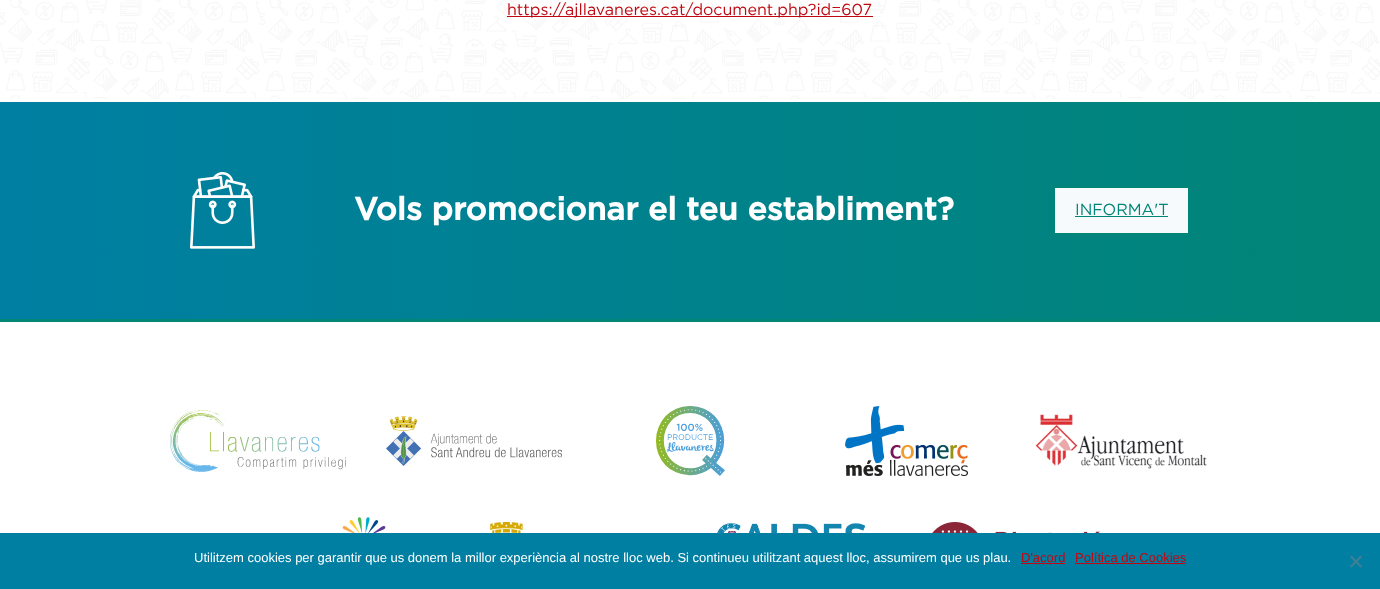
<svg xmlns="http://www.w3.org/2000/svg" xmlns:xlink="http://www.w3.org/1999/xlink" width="1380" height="589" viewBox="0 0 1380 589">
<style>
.cls-1{font:16px Gotham;fill:#bf0811}
.cls-2{font:bold 32px Gotham;fill:#ffffff}
.cls-3{font:16px Gotham;fill:#008576}
.cls-4{font:13px Liberation Sans;fill:#ffffff}
.cls-5{font:13px Liberation Sans;fill:#bf0811}
</style>
<defs>
<linearGradient id="g1" gradientUnits="userSpaceOnUse" x1="0" y1="211" x2="1380" y2="210"><stop offset="0" stop-color="#007fa3"/><stop offset="1" stop-color="#008576"/></linearGradient>
</defs>
<rect width="100%" height="100%" fill="#ffffff"/>
<image xlink:href="image0.png" x="0" y="0" width="1380" height="99"/>
<rect fill="#bf0811" x="507" y="16" width="366" height="1"/>
<rect fill="url(#g1)" x="0" y="102" width="1380" height="217"/>
<image xlink:href="image1.png" x="190" y="172" width="65" height="77"/>
<rect fill="#f6fafd" stroke="#008576" stroke-width="2" x="1054" y="187" width="135" height="47"/>
<rect fill="#008576" x="1075" y="216" width="93" height="1"/>
<rect fill="#008576" x="0" y="319" width="1380" height="3"/>
<image xlink:href="image2.png" x="170" y="410" width="176" height="62"/>
<image xlink:href="image3.png" x="386" y="416" width="176" height="50"/>
<image xlink:href="image4.png" x="656" y="406" width="69" height="70"/>
<image xlink:href="image5.png" x="845" y="406" width="123" height="70"/>
<image xlink:href="image6.png" x="1035" y="414" width="172" height="55"/>
<image xlink:href="image7.png" x="342" y="517" width="44" height="16"/>
<image xlink:href="image8.png" x="484" y="522" width="196" height="11"/>
<image xlink:href="image9.png" x="716" y="523" width="163" height="10"/>
<image xlink:href="image10.png" x="932" y="522" width="168" height="11"/>
<rect fill="#007fa3" x="0" y="533" width="1380" height="56"/>
<rect fill="#bf0811" x="1021" y="563" width="44" height="1"/>
<rect fill="#bf0811" x="1075" y="563" width="111" height="1"/>
<path fill="#408092" d="M1360.5 555.5L1362 557L1351.5 567.5L1350 566Z"/>
<path fill="#408092" d="M1350 557L1351.5 555.5L1362 566L1360.5 567.5Z"/>
<text class="cls-1" x="507" y="15">https://ajllavaneres.cat/document.php?id=607</text>
<text class="cls-2" x="354" y="220">Vols promocionar el teu establiment?</text>
<text class="cls-3" x="1075" y="215">INFORMA'T</text>
<text class="cls-4" x="194" y="562">Utilitzem cookies per garantir que us donem la millor experiència al nostre lloc web. Si continueu utilitzant aquest lloc, assumirem que us plau.</text>
<text class="cls-5" x="1021" y="562">D'acord</text>
<text class="cls-5" x="1075" y="562">Política de Cookies</text>
</svg>
